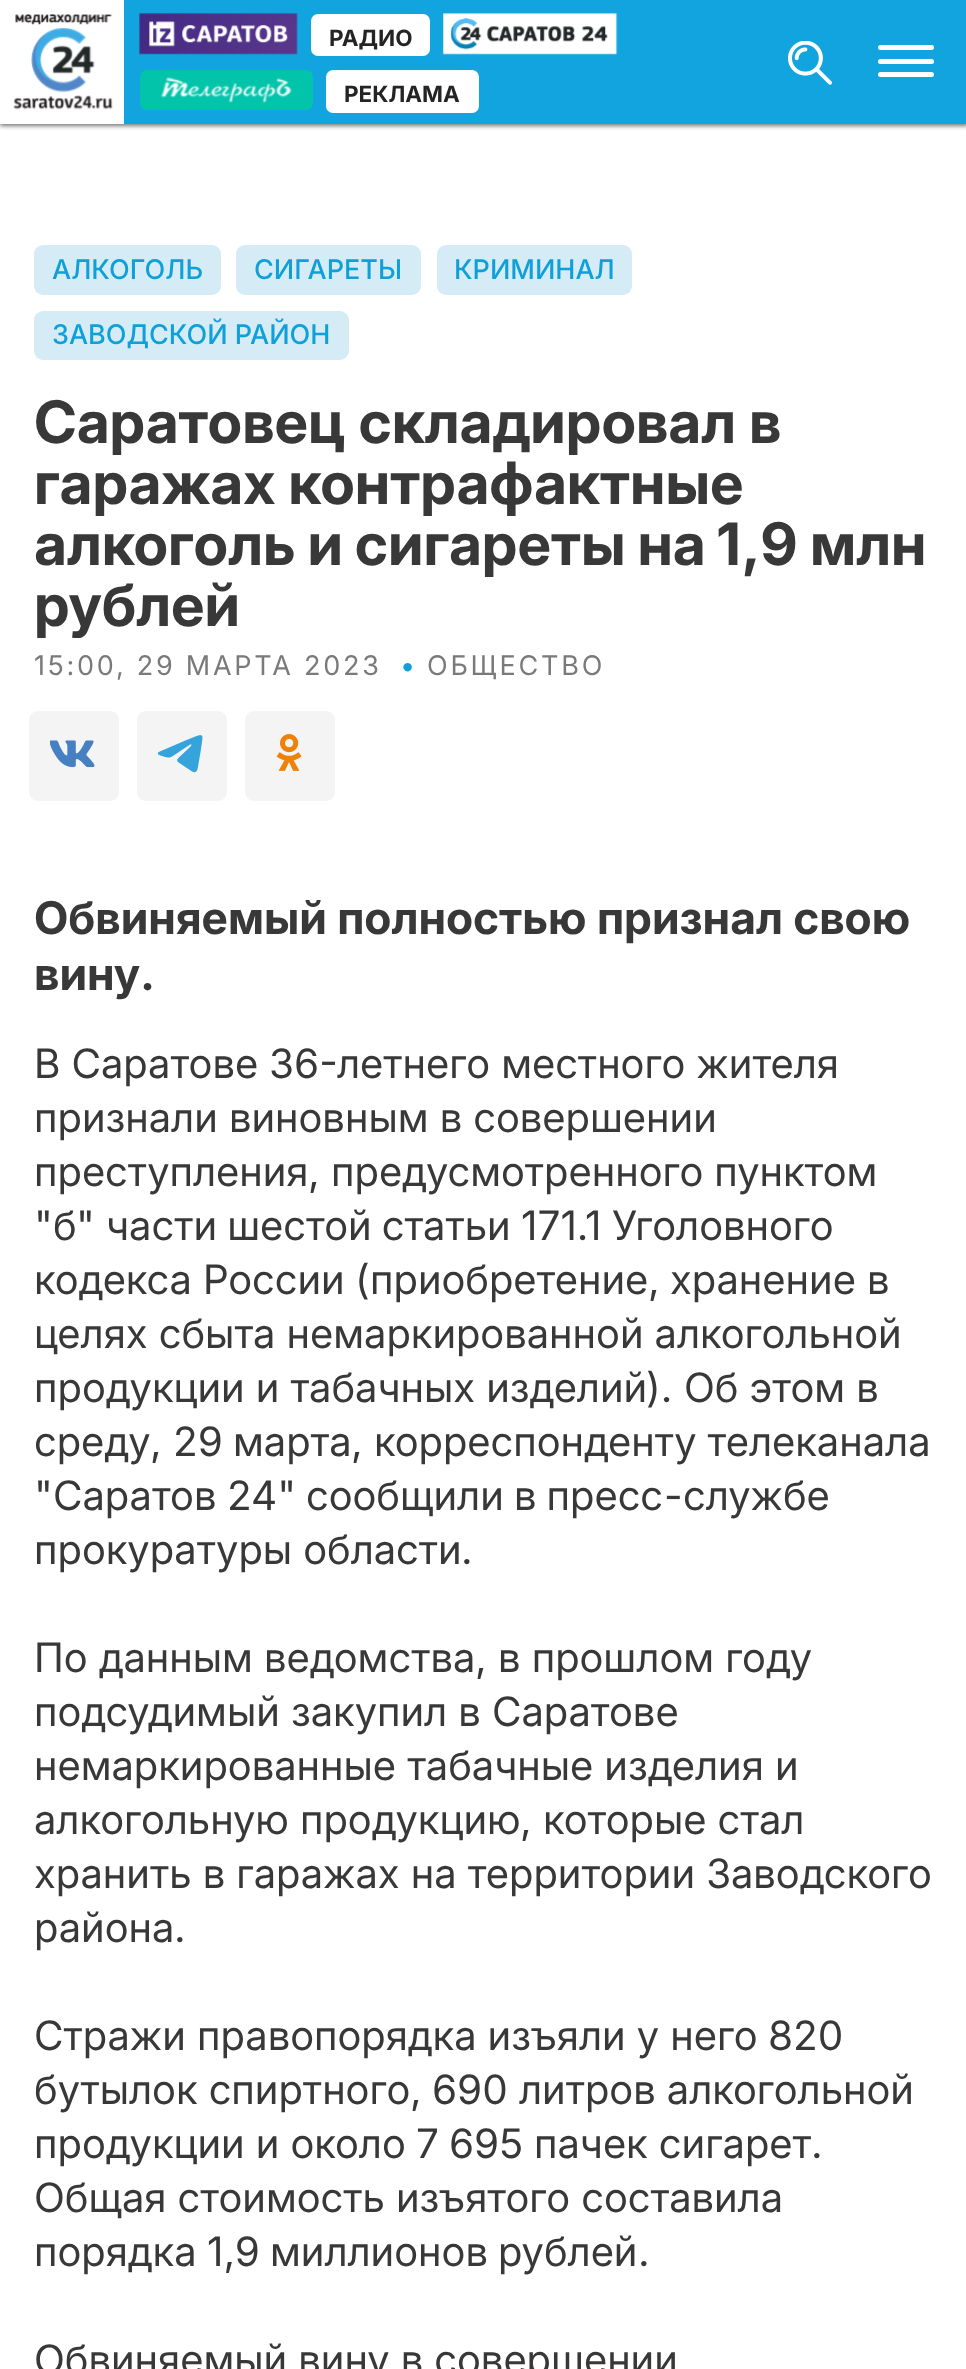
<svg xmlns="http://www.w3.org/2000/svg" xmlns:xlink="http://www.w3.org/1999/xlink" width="966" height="2369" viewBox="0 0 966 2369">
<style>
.cls-1{font:bold 22.5px 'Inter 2';fill:#242424}
.cls-2{font:500 27px Inter;fill:#10a0d9}
.cls-3{font:bold 58.5px Inter;fill:#383838}
.cls-4{font:bold 58.5px 'Inter 2';fill:#383838}
.cls-5{font:27px Inter;letter-spacing:2.75px;fill:#7a7a7a}
.cls-6{font:27px Inter;letter-spacing:2.75px;fill:#10a0d9}
.cls-7{font:bold 45px 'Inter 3';fill:#383838}
.cls-8{font:bold 45px 'Inter 2';fill:#383838}
.cls-9{font:40.5px 'Inter 2';fill:#383838}
.cls-10{font:40.5px Inter;fill:#383838}
</style>
<rect width="100%" height="100%" fill="#ffffff"/>
<rect fill="#787878" filter="blur(2px)" x="0" y="2" width="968" height="124"/>
<rect fill="#12a4de" x="124" y="0" width="842" height="124"/>
<rect fill="#ffffff" x="0" y="0" width="124" height="124"/>
<image xlink:href="image0.png" x="13" y="14" width="100" height="96"/>
<image xlink:href="image1.png" x="139" y="13" width="159" height="42"/>
<rect fill="#ffffff" x="311" y="14" width="119" height="42" rx="7"/>
<image xlink:href="image2.png" x="443" y="13" width="175" height="42"/>
<rect fill="#02c4aa" x="140" y="70" width="173" height="40" rx="7"/>
<image xlink:href="image3.png" x="160" y="77" width="132" height="26"/>
<rect fill="#ffffff" x="326" y="70" width="153" height="43" rx="7"/>
<image xlink:href="image4.png" x="788" y="41" width="44" height="44"/>
<rect fill="#ffffff" x="878" y="45" width="56" height="5" rx="2.5"/>
<rect fill="#ffffff" x="878" y="59" width="56" height="5" rx="2.5"/>
<rect fill="#ffffff" x="878" y="72" width="56" height="5" rx="2.5"/>
<rect fill="#d5ecf6" x="34" y="245" width="187" height="50" rx="9"/>
<rect fill="#d5ecf6" x="236" y="245" width="185" height="50" rx="9"/>
<rect fill="#d5ecf6" x="437" y="245" width="195" height="50" rx="9"/>
<rect fill="#d5ecf6" x="34" y="311" width="315" height="49" rx="9"/>
<rect fill="#f4f4f4" x="29" y="711" width="90" height="90" rx="9"/>
<image xlink:href="image5.png" x="50" y="740" width="45" height="28"/>
<rect fill="#f4f4f4" x="137" y="711" width="90" height="90" rx="9"/>
<image xlink:href="image6.png" x="158" y="735" width="45" height="38"/>
<rect fill="#f4f4f4" x="245" y="711" width="90" height="90" rx="9"/>
<image xlink:href="image7.png" x="276" y="734" width="26" height="37"/>
<text class="cls-1" x="329" y="46">РАДИО</text>
<text class="cls-1" x="344" y="102">РЕКЛАМА</text>
<text class="cls-2" x="52" y="279">АЛКОГОЛЬ</text>
<text class="cls-2" x="254" y="279">СИГАРЕТЫ</text>
<text class="cls-2" x="454" y="279">КРИМИНАЛ</text>
<text class="cls-2" x="52" y="344">ЗАВОДСКОЙ РАЙОН</text>
<text class="cls-3"><tspan x="34" y="443">Саратовец складировал в</tspan><tspan x="34" y="504">гаражах контрафактные</tspan><tspan x="34" y="565" word-spacing="-1">алкоголь и сигареты на</tspan></text>
<text class="cls-4" x="716" y="565">1,9</text>
<text class="cls-3" x="810" y="565">млн</text>
<text class="cls-3" x="34" y="626">рублей</text>
<text class="cls-5" x="34" y="675">15:00, 29 МАРТА 2023</text>
<text class="cls-6" x="400" y="675">•</text>
<text class="cls-5" x="427" y="675">ОБЩЕСТВО</text>
<text class="cls-7"><tspan x="34" y="934">Обвиняемый полностью признал свою</tspan><tspan x="34" y="990">вину</tspan></text>
<text class="cls-8" x="140" y="990">.</text>
<text class="cls-9" x="34" y="1078">В Саратове</text>
<text class="cls-10" x="269" y="1078">36-</text>
<text class="cls-9" x="337" y="1078">летнего местного жителя</text>
<text class="cls-9"><tspan x="34" y="1132">признали виновным в совершении</tspan><tspan x="34" y="1186">преступления</tspan></text>
<text class="cls-10" x="308" y="1186">,</text>
<text class="cls-9" x="331" y="1186">предусмотренного пунктом</text>
<text class="cls-10" x="34" y="1240">"</text>
<text class="cls-9" x="53" y="1240">б</text>
<text class="cls-10" x="76" y="1240">"</text>
<text class="cls-9" x="106" y="1240" word-spacing="-1">части шестой статьи</text>
<text class="cls-10" x="521" y="1240">171.1</text>
<text class="cls-9" x="612" y="1240">Уголовного</text>
<text class="cls-9" x="34" y="1294">кодекса России</text>
<text class="cls-10" x="355" y="1294">(</text>
<text class="cls-9" x="370" y="1294">приобретение</text>
<text class="cls-10" x="648" y="1294">,</text>
<text class="cls-9" x="670" y="1294">хранение в</text>
<text class="cls-9"><tspan x="34" y="1348">целях сбыта немаркированной алкогольной</tspan><tspan x="34" y="1402">продукции и табачных изделий</tspan></text>
<text class="cls-10" x="646" y="1402">).</text>
<text class="cls-9" x="684" y="1402">Об этом в</text>
<text class="cls-9" x="34" y="1456">среду</text>
<text class="cls-10" x="150" y="1456">,</text>
<text class="cls-10" x="173" y="1456">29</text>
<text class="cls-9" x="233" y="1456">марта</text>
<text class="cls-10" x="351" y="1456">,</text>
<text class="cls-9" x="374" y="1456">корреспонденту телеканала</text>
<text class="cls-10" x="34" y="1510">"</text>
<text class="cls-9" x="53" y="1510">Саратов</text>
<text class="cls-10" x="227" y="1510">24"</text>
<text class="cls-9" x="306" y="1510" word-spacing="-1">сообщили в пресс</text>
<text class="cls-10" x="664" y="1510">-</text>
<text class="cls-9" x="683" y="1510">службе</text>
<text class="cls-9" x="34" y="1564">прокуратуры области</text>
<text class="cls-10" x="461" y="1564">.</text>
<text class="cls-9" x="34" y="1672">По данным ведомства</text>
<text class="cls-10" x="475" y="1672">,</text>
<text class="cls-9" x="498" y="1672">в прошлом году</text>
<text class="cls-9"><tspan x="34" y="1726">подсудимый закупил в Саратове</tspan><tspan x="34" y="1780">немаркированные табачные изделия и</tspan><tspan x="34" y="1834">алкогольную продукцию</tspan></text>
<text class="cls-10" x="520" y="1834">,</text>
<text class="cls-9" x="543" y="1834">которые стал</text>
<text class="cls-9"><tspan x="34" y="1888">хранить в гаражах на территории Заводского</tspan><tspan x="34" y="1942">района</tspan></text>
<text class="cls-10" x="174" y="1942">.</text>
<text class="cls-9" x="34" y="2050">Стражи правопорядка изъяли у него</text>
<text class="cls-10" x="768" y="2050">820</text>
<text class="cls-9" x="34" y="2104">бутылок спиртного</text>
<text class="cls-10" x="410" y="2104">,</text>
<text class="cls-10" x="432" y="2104">690</text>
<text class="cls-9" x="519" y="2104">литров алкогольной</text>
<text class="cls-9" x="34" y="2158">продукции и около</text>
<text class="cls-10" x="416" y="2158">7</text>
<text class="cls-10" x="449" y="2158">695</text>
<text class="cls-9" x="534" y="2158">пачек сигарет</text>
<text class="cls-10" x="811" y="2158">.</text>
<text class="cls-9"><tspan x="34" y="2212">Общая стоимость изъятого составила</tspan><tspan x="34" y="2266">порядка</tspan></text>
<text class="cls-10" x="207" y="2266">1,9</text>
<text class="cls-9" x="270" y="2266" word-spacing="-1">миллионов рублей</text>
<text class="cls-10" x="638" y="2266">.</text>
<text class="cls-9" x="34" y="2374">Обвиняемый вину в совершении</text>
</svg>
